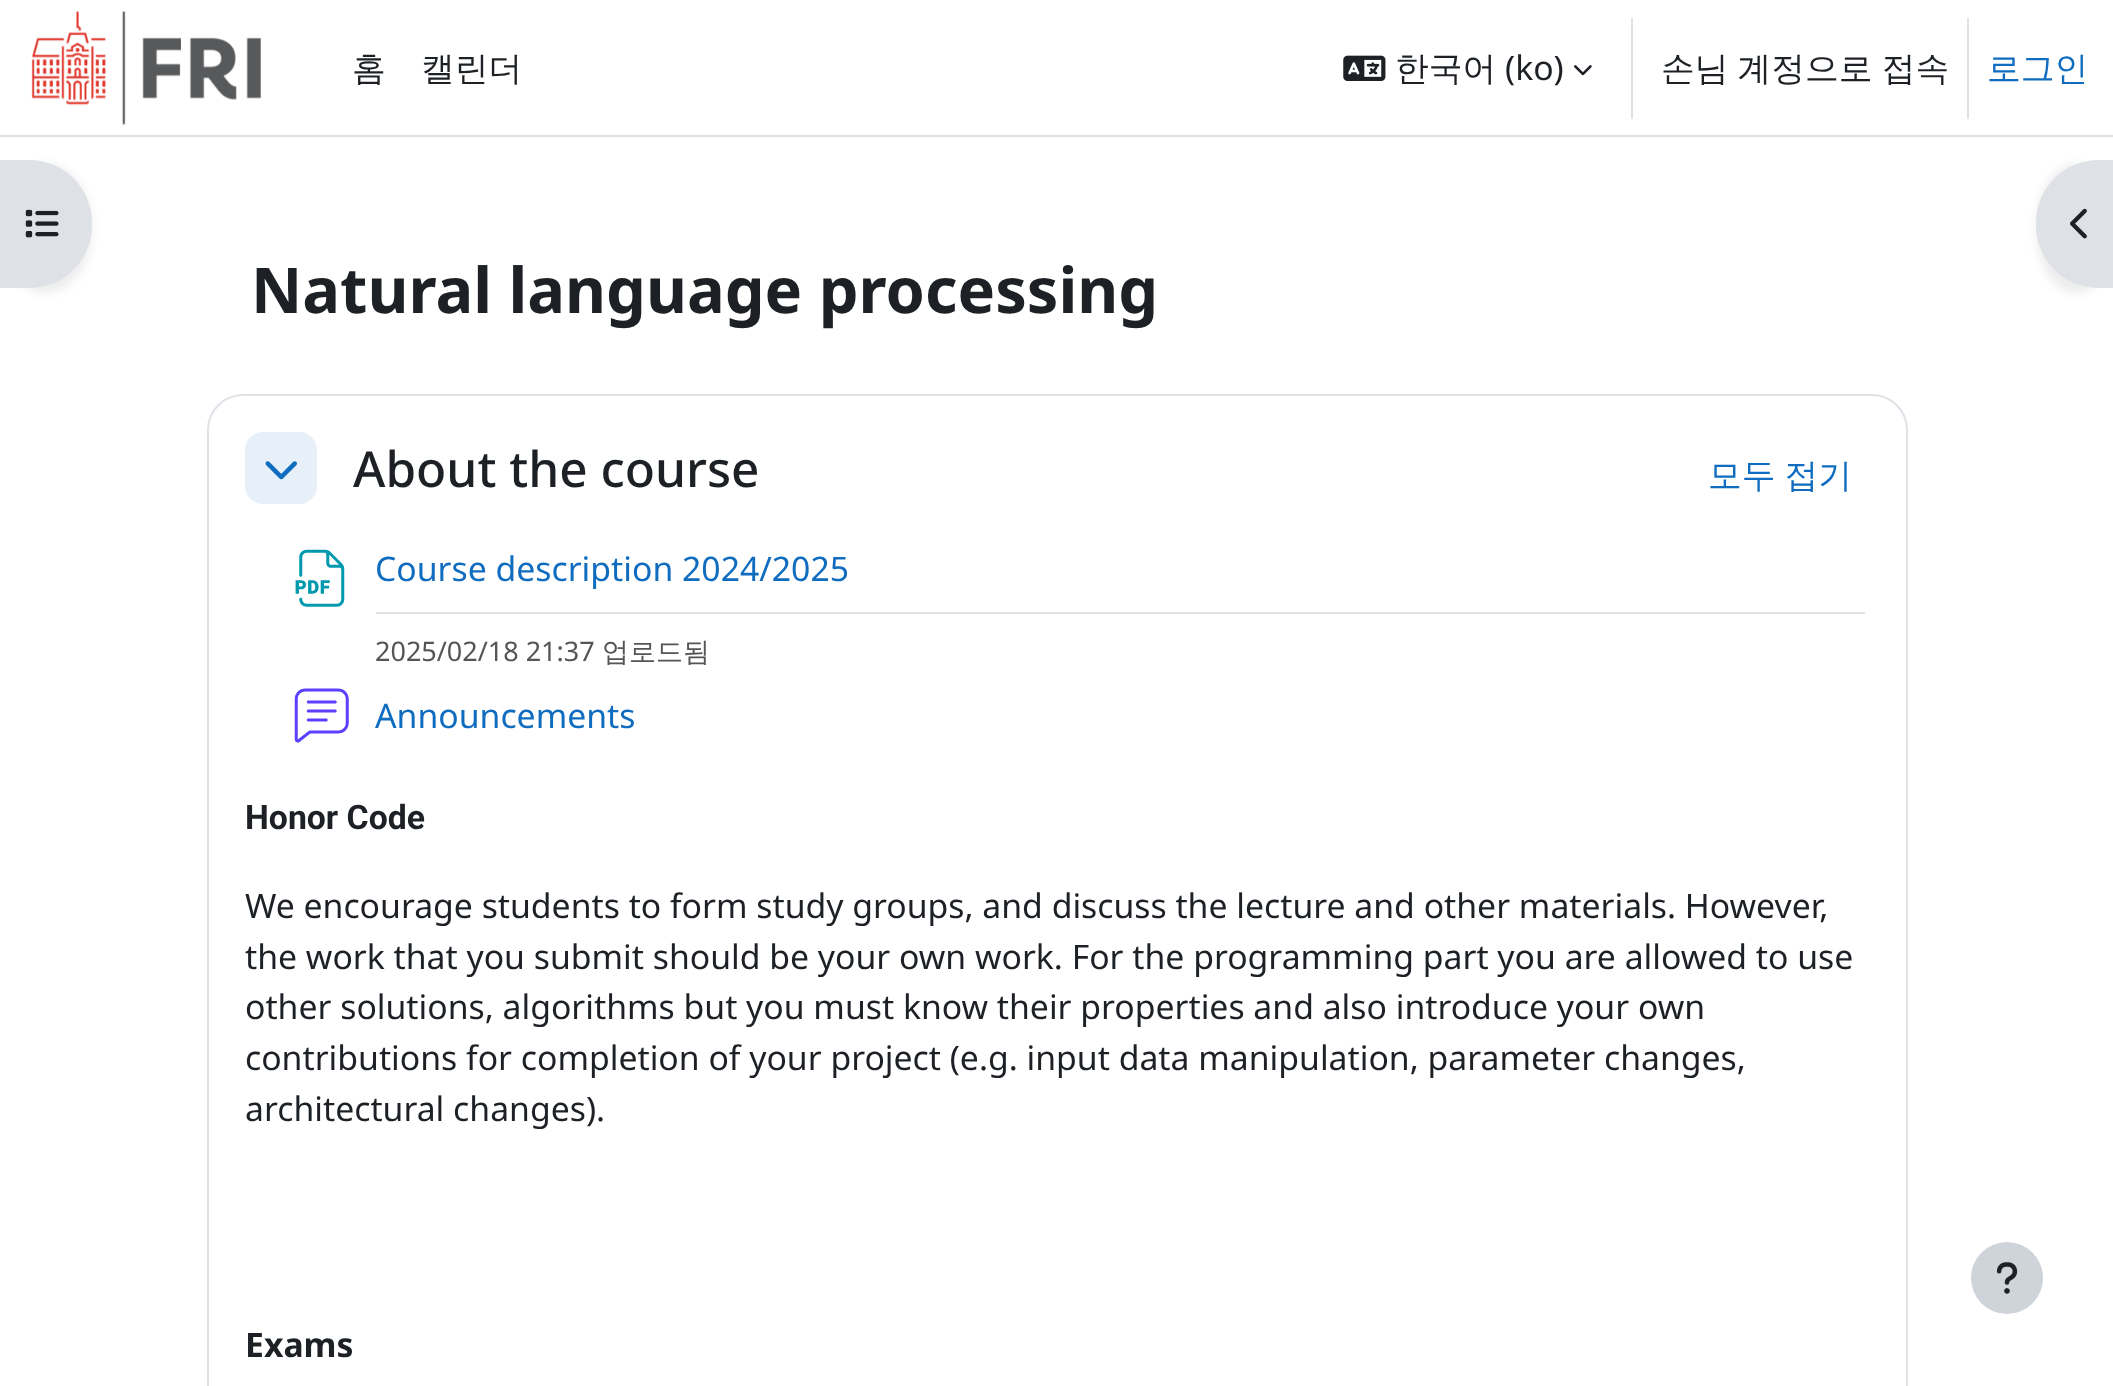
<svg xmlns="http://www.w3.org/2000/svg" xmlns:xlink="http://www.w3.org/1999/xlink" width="2113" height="1386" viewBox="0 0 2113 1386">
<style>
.cls-1{font:500 33.75px WenQuanYi Zen Hei;fill:#1d2125}
.cls-2{font:33.75px Noto Sans;fill:#1d2125}
.cls-3{font:500 33.75px WenQuanYi Zen Hei;fill:#0f6cbf}
.cls-4{font:bold 63.1px Noto Sans;fill:#1d2125}
.cls-5{font:500 49.5px Noto Sans;fill:#1d2125}
.cls-6{font:33.75px Noto Sans;fill:#0f6cbf}
.cls-7{font:27px Noto Sans;fill:#555555}
.cls-8{font:500 27px WenQuanYi Zen Hei;fill:#555555}
.cls-9{font:bold 33.75px Roboto;fill:#1d2125}
.cls-10{font:bold 33.75px Noto Sans;fill:#1d2125}
</style>
<rect width="100%" height="100%" fill="#ffffff"/>
<rect fill="#dee2e6" x="0" y="135" width="2113" height="2"/>
<image xlink:href="image0.png" x="31" y="11" width="230" height="115"/>
<image xlink:href="image1.png" x="1343" y="55" width="43" height="26"/>
<image xlink:href="image2.png" x="1574" y="65" width="18" height="11"/>
<rect fill="#dee2e6" x="1631" y="18" width="2" height="101"/>
<rect fill="#dee2e6" x="1967" y="18" width="2" height="101"/>
<rect fill="#000000" fill-opacity="0.07" filter="blur(4.5px)" x="0" y="164" width="92" height="129" rx="63"/>
<path fill="#dee2e6" d="M0 160H29C64 160 92 188 92 223V225C92 260 64 288 29 288H0Z"/>
<image xlink:href="image3.png" x="25" y="209" width="34" height="29"/>
<rect fill="#000000" fill-opacity="0.07" filter="blur(4.5px)" x="2036" y="164" width="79" height="129" rx="63"/>
<path fill="#dee2e6" d="M2099 160H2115V288H2099C2064 288 2036 260 2036 225V223C2036 188 2064 160 2099 160Z"/>
<image xlink:href="image4.png" x="2070" y="208" width="17" height="31"/>
<rect fill="none" stroke="#dee2e6" stroke-width="2" x="208" y="395" width="1699" height="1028" rx="35"/>
<rect fill="#e7f0f9" x="245" y="432" width="72" height="72" rx="18"/>
<image xlink:href="image5.png" x="265" y="461" width="32" height="19"/>
<image xlink:href="image6.png" x="295" y="549" width="50" height="58"/>
<rect fill="#dee2e6" x="376" y="612" width="1489" height="2"/>
<image xlink:href="image7.png" x="294" y="688" width="55" height="55"/>
<circle fill="#ced4da" cx="2007" cy="1278" r="36"/>
<image xlink:href="image8.png" x="1996" y="1262" width="22" height="32"/>
<text class="cls-1" x="352" y="80">홈</text>
<text class="cls-1" x="421" y="80">캘린더</text>
<text class="cls-1" x="1395" y="80">한국어</text>
<text class="cls-2" x="1505" y="80">(ko)</text>
<text class="cls-1" x="1661" y="80" word-spacing="-1">손님 계정으로 접속</text>
<text class="cls-3" x="1987" y="80">로그인</text>
<text class="cls-4" x="251" y="313">Natural language processing</text>
<text class="cls-5" x="353" y="487">About the course</text>
<text class="cls-3" x="1708" y="487" word-spacing="-1">모두 접기</text>
<text class="cls-6" x="375" y="581">Course description 2024/2025</text>
<text class="cls-7" x="375" y="661">2025/02/18 21:37</text>
<text class="cls-8" x="602" y="661">업로드됨</text>
<text class="cls-6" x="375" y="728">Announcements</text>
<text class="cls-9" x="245" y="829">Honor Code</text>
<text class="cls-2"><tspan x="245" y="918">We encourage students to form study groups, and discuss the lecture and other materials. However,</tspan><tspan x="245" y="969">the work that you submit should be your own work. For the programming part you are allowed to use</tspan><tspan x="245" y="1019">other solutions, algorithms but you must know their properties and also introduce your own</tspan><tspan x="245" y="1070">contributions for completion of your project (e.g. input data manipulation, parameter changes,</tspan><tspan x="245" y="1121">architectural changes).</tspan></text>
<text class="cls-10" x="245" y="1357">Exams</text>
</svg>
